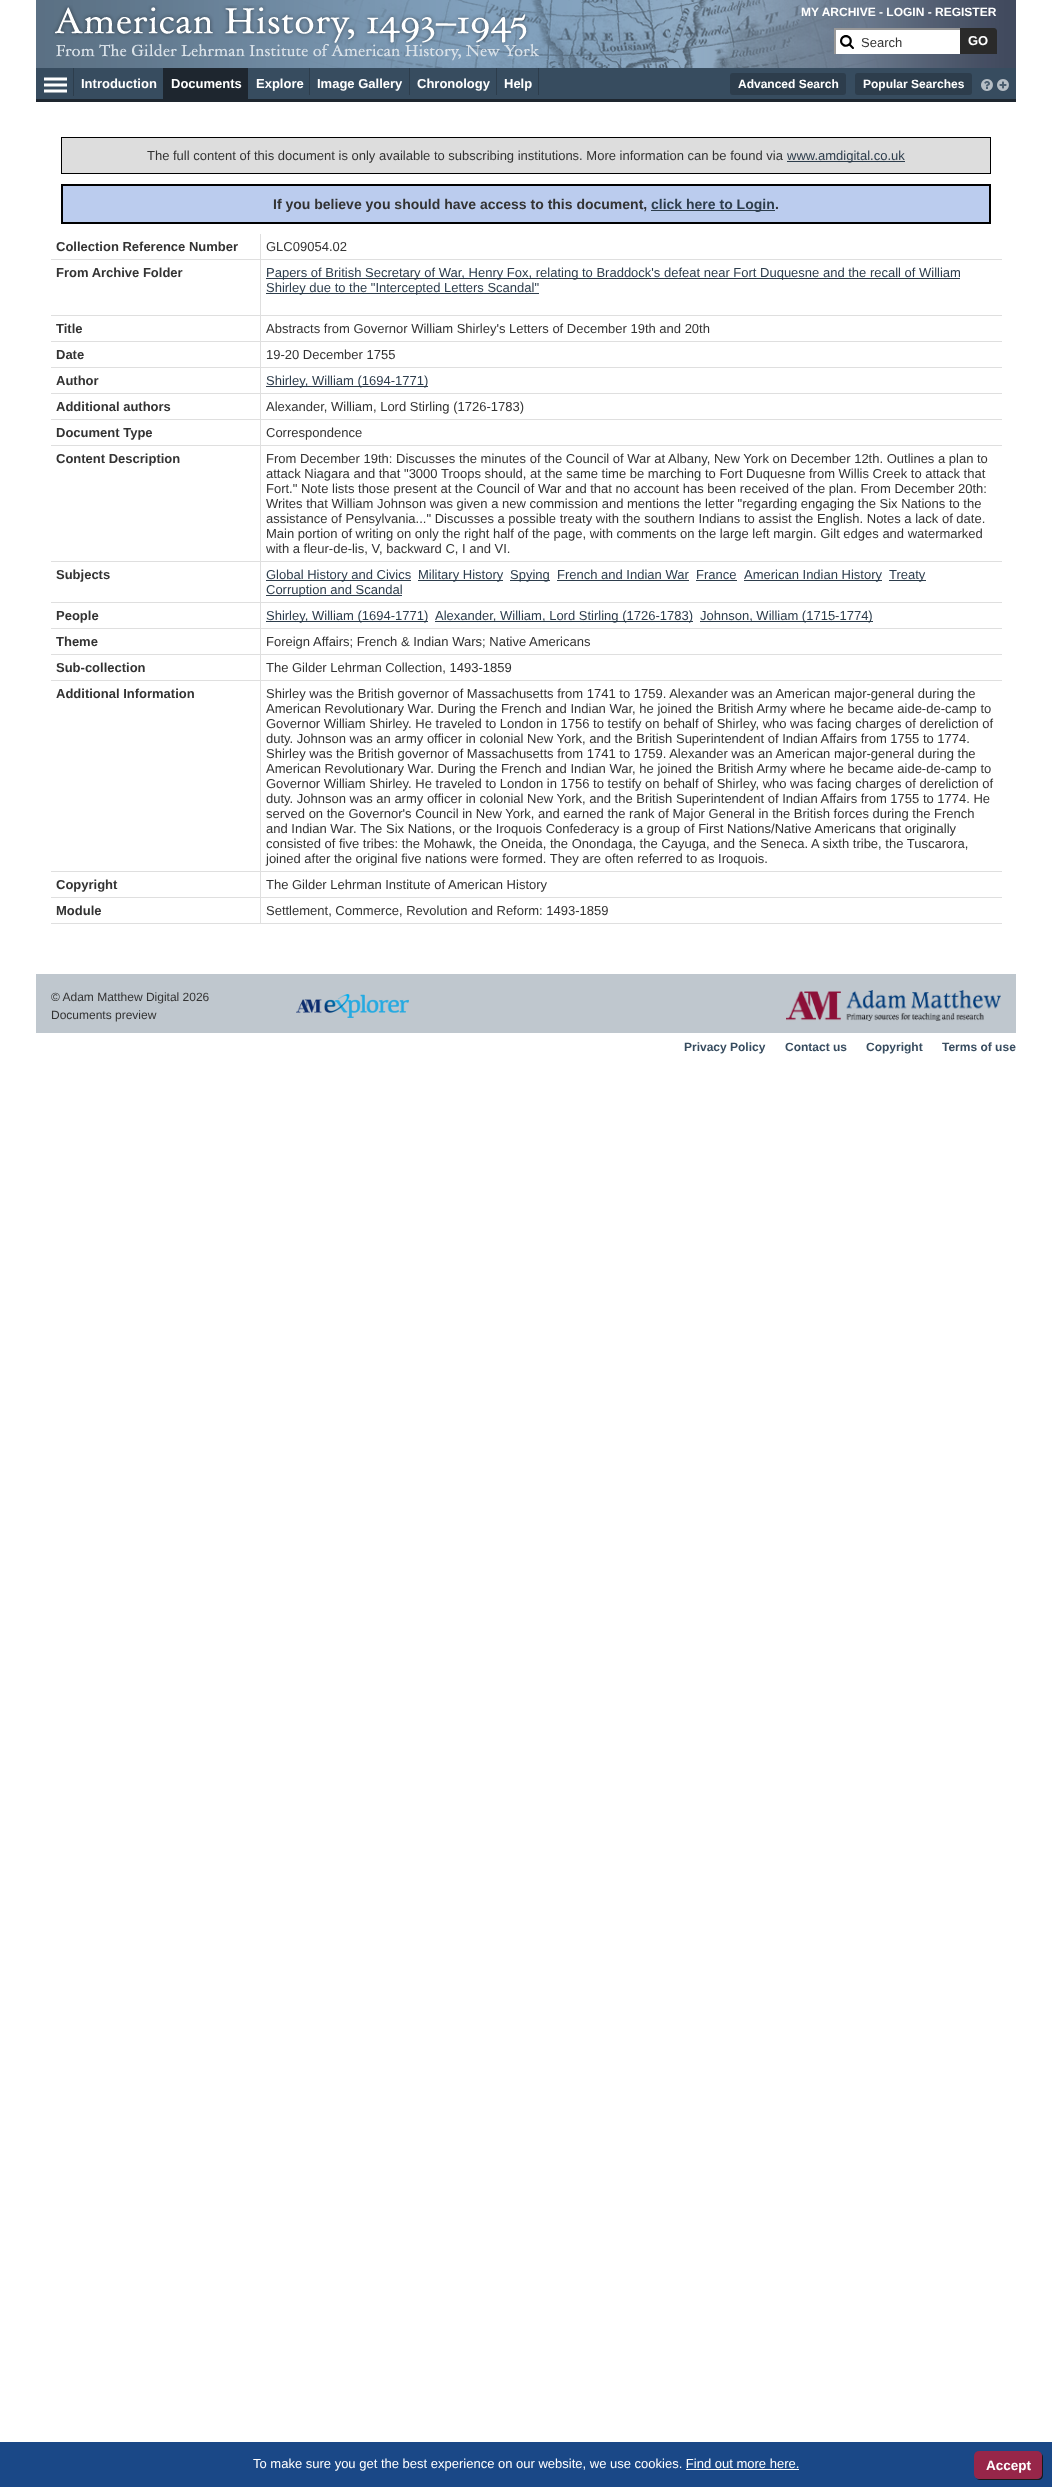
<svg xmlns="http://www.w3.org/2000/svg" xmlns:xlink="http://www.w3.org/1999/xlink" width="1052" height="2487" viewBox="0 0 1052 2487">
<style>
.cls-1{font:bold 12px Liberation Sans;fill:#ffffff}
.cls-2{font:13px Liberation Sans;fill:#333333}
.cls-3{font:bold 13px Liberation Sans;fill:#ffffff}
.cls-4{font:13px Liberation Sans;fill:#2d3d4c}
.cls-5{font:bold 14px Liberation Sans;fill:#333333}
.cls-6{font:bold 14px Liberation Sans;fill:#2d3d4c}
.cls-7{font:bold 13px Liberation Sans;fill:#333333}
.cls-8{font:12px Liberation Sans;fill:#333333}
.cls-9{font:bold 12px Liberation Sans;fill:#374c5f}
.cls-10{font:13px Liberation Sans;fill:#ffffff}
.cls-11{font:bold 13.5px Liberation Sans;fill:#ffffff}
</style>
<rect width="100%" height="100%" fill="#ffffff"/>
<image xlink:href="image0.png" x="36" y="0" width="980" height="68"/>
<image xlink:href="image1.png" x="53" y="5" width="486" height="56"/>
<rect fill="#ffffff" x="836" y="30" width="124" height="24"/>
<image xlink:href="image2.png" x="840" y="35" width="14" height="14"/>
<rect fill="#999999" x="834" y="28" width="126" height="2"/>
<rect fill="#999999" x="834" y="28" width="2" height="26"/>
<path fill="#2a2a2a" d="M960 28H994C995.5 28 997 29.5 997 31V54H960Z"/>
<rect fill="#374c5f" x="36" y="68" width="980" height="31"/>
<rect fill="#1e262f" x="36" y="99" width="980" height="3"/>
<path fill="none" stroke="#ffffff" stroke-width="3" d="M44 79H67M44 85H67M44 91H67"/>
<rect fill="#2d3d4c" x="73" y="68" width="1" height="28"/>
<rect fill="#1e262f" x="163" y="68" width="85" height="31"/>
<rect fill="#2d3d4c" x="309" y="68" width="1" height="27"/>
<rect fill="#2d3d4c" x="409" y="68" width="1" height="27"/>
<rect fill="#2d3d4c" x="496" y="68" width="1" height="27"/>
<rect fill="#2d3d4c" x="538" y="68" width="1" height="27"/>
<rect fill="#2d3d4c" x="730" y="73" width="116" height="22" rx="3"/>
<rect fill="#2d3d4c" x="855" y="73" width="117" height="22" rx="3"/>
<image xlink:href="image3.png" x="981" y="79" width="12" height="12"/>
<image xlink:href="image4.png" x="997" y="79" width="12" height="12"/>
<rect fill="#dddddd" stroke="#000000" x="61.5" y="137.5" width="929" height="36"/>
<rect fill="#2d3d4c" x="787" y="161" width="118" height="1"/>
<rect fill="#bbccee" stroke="#000000" stroke-width="2" x="62" y="185" width="928" height="38"/>
<rect fill="#2d3d4c" x="651" y="210" width="124" height="1"/>
<rect fill="#dfdfdf" x="260" y="923" width="742" height="1"/>
<rect fill="#dfdfdf" x="260" y="897" width="1" height="27"/>
<rect fill="#dfdfdf" x="260" y="897" width="742" height="1"/>
<rect fill="#dfdfdf" x="260" y="871" width="1" height="27"/>
<rect fill="#dfdfdf" x="260" y="871" width="742" height="1"/>
<rect fill="#dfdfdf" x="260" y="680" width="1" height="192"/>
<rect fill="#dfdfdf" x="260" y="680" width="742" height="1"/>
<rect fill="#dfdfdf" x="260" y="654" width="1" height="27"/>
<rect fill="#dfdfdf" x="260" y="654" width="742" height="1"/>
<rect fill="#dfdfdf" x="260" y="628" width="1" height="27"/>
<rect fill="#dfdfdf" x="260" y="628" width="742" height="1"/>
<rect fill="#dfdfdf" x="260" y="602" width="1" height="27"/>
<rect fill="#dfdfdf" x="260" y="602" width="742" height="1"/>
<rect fill="#dfdfdf" x="260" y="561" width="1" height="42"/>
<rect fill="#dfdfdf" x="260" y="561" width="742" height="1"/>
<rect fill="#dfdfdf" x="260" y="445" width="1" height="117"/>
<rect fill="#dfdfdf" x="260" y="445" width="742" height="1"/>
<rect fill="#dfdfdf" x="260" y="419" width="1" height="27"/>
<rect fill="#dfdfdf" x="260" y="419" width="742" height="1"/>
<rect fill="#dfdfdf" x="260" y="393" width="1" height="27"/>
<rect fill="#dfdfdf" x="260" y="393" width="742" height="1"/>
<rect fill="#dfdfdf" x="260" y="367" width="1" height="27"/>
<rect fill="#dfdfdf" x="260" y="367" width="742" height="1"/>
<rect fill="#dfdfdf" x="260" y="341" width="1" height="27"/>
<rect fill="#dfdfdf" x="260" y="341" width="742" height="1"/>
<rect fill="#dfdfdf" x="260" y="315" width="1" height="27"/>
<rect fill="#dfdfdf" x="260" y="315" width="742" height="1"/>
<rect fill="#dfdfdf" x="260" y="259" width="1" height="57"/>
<rect fill="#dfdfdf" x="260" y="259" width="742" height="1"/>
<rect fill="#dfdfdf" x="260" y="234" width="1" height="26"/>
<rect fill="#dfdfdf" x="51" y="259" width="210" height="1"/>
<rect fill="#dfdfdf" x="51" y="315" width="210" height="1"/>
<rect fill="#2d3d4c" x="266" y="278" width="694" height="1"/>
<rect fill="#2d3d4c" x="266" y="293" width="273" height="1"/>
<rect fill="#dfdfdf" x="51" y="341" width="210" height="1"/>
<rect fill="#dfdfdf" x="51" y="367" width="210" height="1"/>
<rect fill="#dfdfdf" x="51" y="393" width="210" height="1"/>
<rect fill="#2d3d4c" x="266" y="386" width="162" height="1"/>
<rect fill="#dfdfdf" x="51" y="419" width="210" height="1"/>
<rect fill="#dfdfdf" x="51" y="445" width="210" height="1"/>
<rect fill="#dfdfdf" x="51" y="561" width="210" height="1"/>
<rect fill="#dfdfdf" x="51" y="602" width="210" height="1"/>
<rect fill="#2d3d4c" x="266" y="580" width="145" height="1"/>
<rect fill="#2d3d4c" x="418" y="580" width="85" height="1"/>
<rect fill="#2d3d4c" x="510" y="580" width="40" height="1"/>
<rect fill="#2d3d4c" x="557" y="580" width="132" height="1"/>
<rect fill="#2d3d4c" x="696" y="580" width="41" height="1"/>
<rect fill="#2d3d4c" x="744" y="580" width="138" height="1"/>
<rect fill="#2d3d4c" x="889" y="580" width="37" height="1"/>
<rect fill="#2d3d4c" x="266" y="595" width="136" height="1"/>
<rect fill="#dfdfdf" x="51" y="628" width="210" height="1"/>
<rect fill="#2d3d4c" x="266" y="621" width="162" height="1"/>
<rect fill="#2d3d4c" x="435" y="621" width="258" height="1"/>
<rect fill="#2d3d4c" x="700" y="621" width="173" height="1"/>
<rect fill="#dfdfdf" x="51" y="654" width="210" height="1"/>
<rect fill="#dfdfdf" x="51" y="680" width="210" height="1"/>
<rect fill="#dfdfdf" x="51" y="871" width="210" height="1"/>
<rect fill="#dfdfdf" x="51" y="897" width="210" height="1"/>
<rect fill="#dfdfdf" x="51" y="923" width="210" height="1"/>
<rect fill="#bfc7ce" x="36" y="974" width="980" height="59"/>
<image xlink:href="image5.png" x="296" y="994" width="113" height="24"/>
<image xlink:href="image6.png" x="786" y="990" width="215" height="31"/>
<rect fill="#1a4887" x="0" y="2442" width="1052" height="45"/>
<rect fill="#ffffff" x="686" y="2469" width="113" height="1"/>
<path fill="#1a1a1a" d="M976 2478C977 2479 978 2480 980 2480H1038C1041 2480 1043 2478 1043 2475V2457C1043 2455 1042 2454 1041 2453C1042 2454 1042 2455 1042 2456V2474C1042 2477 1040 2479 1037 2479H979C978 2479 977 2479 976 2478Z"/>
<rect fill="#972649" x="974" y="2451" width="68" height="28" rx="5"/>
<text class="cls-1" x="801" y="16">MY ARCHIVE - LOGIN - REGISTER</text>
<text class="cls-2" x="861" y="47">Search</text>
<text class="cls-3" x="968" y="45">GO</text>
<text class="cls-3" x="81" y="88">Introduction</text>
<text class="cls-3" x="171" y="88">Documents</text>
<text class="cls-3" x="256" y="88">Explore</text>
<text class="cls-3" x="317" y="88">Image Gallery</text>
<text class="cls-3" x="417" y="88">Chronology</text>
<text class="cls-3" x="504" y="88">Help</text>
<text class="cls-1" x="738" y="88">Advanced Search</text>
<text class="cls-1" x="863" y="88">Popular Searches</text>
<text class="cls-2" x="147" y="160">The full content of this document is only available to subscribing institutions. More information can be found via</text>
<text class="cls-4" x="787" y="160">www.amdigital.co.uk</text>
<text class="cls-5" x="273" y="209">If you believe you should have access to this document,</text>
<text class="cls-6" x="651" y="209">click here to Login</text>
<text class="cls-5" x="775" y="209">.</text>
<text class="cls-7" x="56" y="251">Collection Reference Number</text>
<text class="cls-2" x="266" y="251">GLC09054.02</text>
<text class="cls-7" x="56" y="277">From Archive Folder</text>
<text class="cls-4"><tspan x="266" y="277">Papers of British Secretary of War, Henry Fox, relating to Braddock's defeat near Fort Duquesne and the recall of William</tspan><tspan x="266" y="292">Shirley due to the "Intercepted Letters Scandal"</tspan></text>
<text class="cls-7" x="56" y="333">Title</text>
<text class="cls-2" x="266" y="333">Abstracts from Governor William Shirley's Letters of December 19th and 20th</text>
<text class="cls-7" x="56" y="359">Date</text>
<text class="cls-2" x="266" y="359">19-20 December 1755</text>
<text class="cls-7" x="56" y="385">Author</text>
<text class="cls-4" x="266" y="385">Shirley, William (1694-1771)</text>
<text class="cls-7" x="56" y="411">Additional authors</text>
<text class="cls-2" x="266" y="411">Alexander, William, Lord Stirling (1726-1783)</text>
<text class="cls-7" x="56" y="437">Document Type</text>
<text class="cls-2" x="266" y="437">Correspondence</text>
<text class="cls-7" x="56" y="463">Content Description</text>
<text class="cls-2"><tspan x="266" y="463">From December 19th: Discusses the minutes of the Council of War at Albany, New York on December 12th. Outlines a plan to</tspan><tspan x="266" y="478">attack Niagara and that "3000 Troops should, at the same time be marching to Fort Duquesne from Willis Creek to attack that</tspan><tspan x="266" y="493">Fort." Note lists those present at the Council of War and that no account has been received of the plan. From December 20th:</tspan><tspan x="266" y="508">Writes that William Johnson was given a new commission and mentions the letter "regarding engaging the Six Nations to the</tspan><tspan x="266" y="523">assistance of Pensylvania..." Discusses a possible treaty with the southern Indians to assist the English. Notes a lack of date.</tspan><tspan x="266" y="538">Main portion of writing on only the right half of the page, with comments on the large left margin. Gilt edges and watermarked</tspan><tspan x="266" y="553">with a fleur-de-lis, V, backward C, I and VI.</tspan></text>
<text class="cls-7" x="56" y="579">Subjects</text>
<text class="cls-4" x="266" y="579">Global History and Civics</text>
<text class="cls-4" x="418" y="579">Military History</text>
<text class="cls-4" x="510" y="579">Spying</text>
<text class="cls-4" x="557" y="579">French and Indian War</text>
<text class="cls-4" x="696" y="579">France</text>
<text class="cls-4" x="744" y="579">American Indian History</text>
<text class="cls-4" x="889" y="579">Treaty</text>
<text class="cls-4" x="266" y="594">Corruption and Scandal</text>
<text class="cls-7" x="56" y="620">People</text>
<text class="cls-4" x="266" y="620">Shirley, William (1694-1771)</text>
<text class="cls-4" x="435" y="620">Alexander, William, Lord Stirling (1726-1783)</text>
<text class="cls-4" x="700" y="620">Johnson, William (1715-1774)</text>
<text class="cls-7" x="56" y="646">Theme</text>
<text class="cls-2" x="266" y="646">Foreign Affairs; French &amp; Indian Wars; Native Americans</text>
<text class="cls-7" x="56" y="672">Sub-collection</text>
<text class="cls-2" x="266" y="672">The Gilder Lehrman Collection, 1493-1859</text>
<text class="cls-7" x="56" y="698">Additional Information</text>
<text class="cls-2"><tspan x="266" y="698">Shirley was the British governor of Massachusetts from 1741 to 1759. Alexander was an American major-general during the</tspan><tspan x="266" y="713">American Revolutionary War. During the French and Indian War, he joined the British Army where he became aide-de-camp to</tspan><tspan x="266" y="728">Governor William Shirley. He traveled to London in 1756 to testify on behalf of Shirley, who was facing charges of dereliction of</tspan><tspan x="266" y="743">duty. Johnson was an army officer in colonial New York, and the British Superintendent of Indian Affairs from 1755 to 1774.</tspan><tspan x="266" y="758">Shirley was the British governor of Massachusetts from 1741 to 1759. Alexander was an American major-general during the</tspan><tspan x="266" y="773">American Revolutionary War. During the French and Indian War, he joined the British Army where he became aide-de-camp to</tspan><tspan x="266" y="788">Governor William Shirley. He traveled to London in 1756 to testify on behalf of Shirley, who was facing charges of dereliction of</tspan><tspan x="266" y="803">duty. Johnson was an army officer in colonial New York, and the British Superintendent of Indian Affairs from 1755 to 1774. He</tspan><tspan x="266" y="818">served on the Governor's Council in New York, and earned the rank of Major General in the British forces during the French</tspan><tspan x="266" y="833">and Indian War. The Six Nations, or the Iroquois Confederacy is a group of First Nations/Native Americans that originally</tspan><tspan x="266" y="848">consisted of five tribes: the Mohawk, the Oneida, the Onondaga, the Cayuga, and the Seneca. A sixth tribe, the Tuscarora,</tspan><tspan x="266" y="863">joined after the original five nations were formed. They are often referred to as Iroquois.</tspan></text>
<text class="cls-7" x="56" y="889">Copyright</text>
<text class="cls-2" x="266" y="889">The Gilder Lehrman Institute of American History</text>
<text class="cls-7" x="56" y="915">Module</text>
<text class="cls-2" x="266" y="915">Settlement, Commerce, Revolution and Reform: 1493-1859</text>
<text class="cls-8"><tspan x="51" y="1001">© Adam Matthew Digital 2026</tspan><tspan x="51" y="1019">Documents preview</tspan></text>
<text class="cls-9" x="684" y="1051">Privacy Policy</text>
<text class="cls-9" x="785" y="1051">Contact us</text>
<text class="cls-9" x="866" y="1051">Copyright</text>
<text class="cls-9" x="942" y="1051">Terms of use</text>
<text class="cls-10" x="253" y="2468">To make sure you get the best experience on our website, we use cookies. Find out more here.</text>
<text class="cls-11" x="986" y="2470">Accept</text>
</svg>
